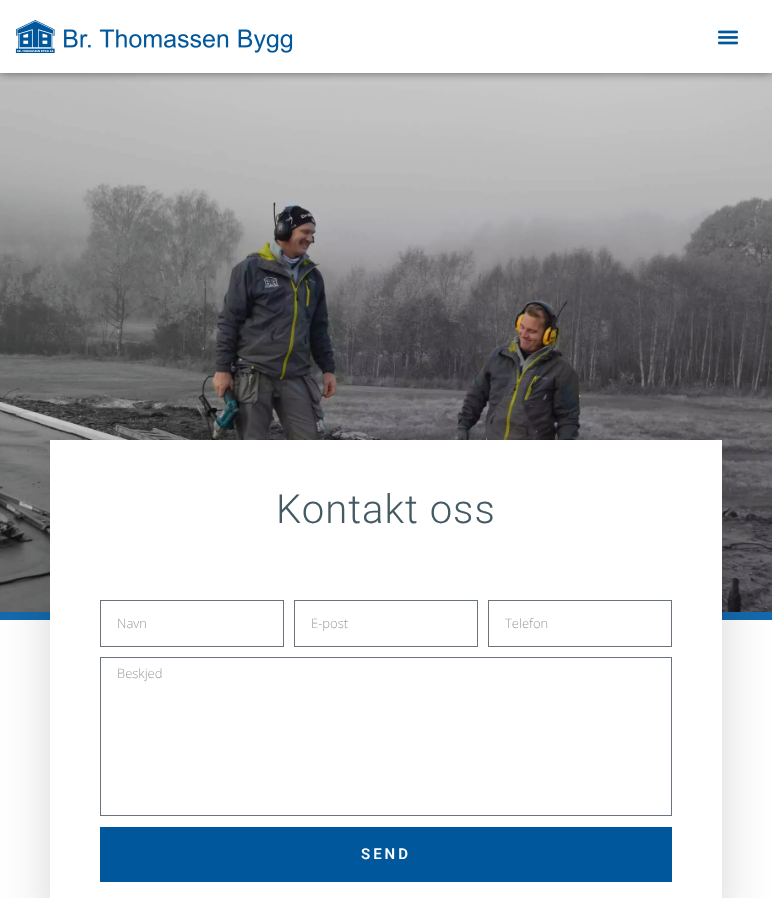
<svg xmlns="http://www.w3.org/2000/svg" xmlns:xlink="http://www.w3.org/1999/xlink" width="772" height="898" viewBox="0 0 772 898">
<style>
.cls-1{font:300 40px Roboto;letter-spacing:1px;fill:#455b64}
.cls-2{font:300 13px Open Sans;fill:#989b9f}
.cls-3{font:600 15px Roboto;letter-spacing:3px;fill:#ffffff}
</style>
<defs>
<clipPath id="clip1"><rect x="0" y="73" width="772" height="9"/></clipPath>
</defs>
<rect width="100%" height="100%" fill="#ffffff"/>
<image xlink:href="image2.png" x="0" y="73" width="772" height="539"/>
<g clip-path="url(#clip1)">
<rect fill="#000000" fill-opacity="0.5" filter="blur(5px)" x="0" y="0" width="772" height="73"/>
</g>
<image xlink:href="image0.png" x="15" y="20" width="278" height="33"/>
<image xlink:href="image1.png" x="717" y="30" width="22" height="15"/>
<rect fill="#1569ae" x="0" y="612" width="772" height="8"/>
<rect fill="#000000" fill-opacity="0.16" filter="blur(25px)" x="50" y="440" width="672" height="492"/>
<rect fill="#ffffff" x="50" y="440" width="672" height="458"/>
<rect fill="none" stroke="#69727d" x="100.5" y="600.5" width="183" height="46"/>
<rect fill="none" stroke="#69727d" x="294.5" y="600.5" width="183" height="46"/>
<rect fill="none" stroke="#69727d" x="488.5" y="600.5" width="183" height="46"/>
<rect fill="none" stroke="#69727d" x="100.5" y="657.5" width="571" height="158"/>
<rect fill="#01579b" x="100" y="827" width="572" height="55"/>
<text class="cls-1" x="276" y="523">Kontakt oss</text>
<text class="cls-2" x="117" y="628">Navn</text>
<text class="cls-2" x="311" y="628">E-post</text>
<text class="cls-2" x="505" y="628">Telefon</text>
<text class="cls-2" x="117" y="678">Beskjed</text>
<text class="cls-3" x="361" y="859">SEND</text>
</svg>
